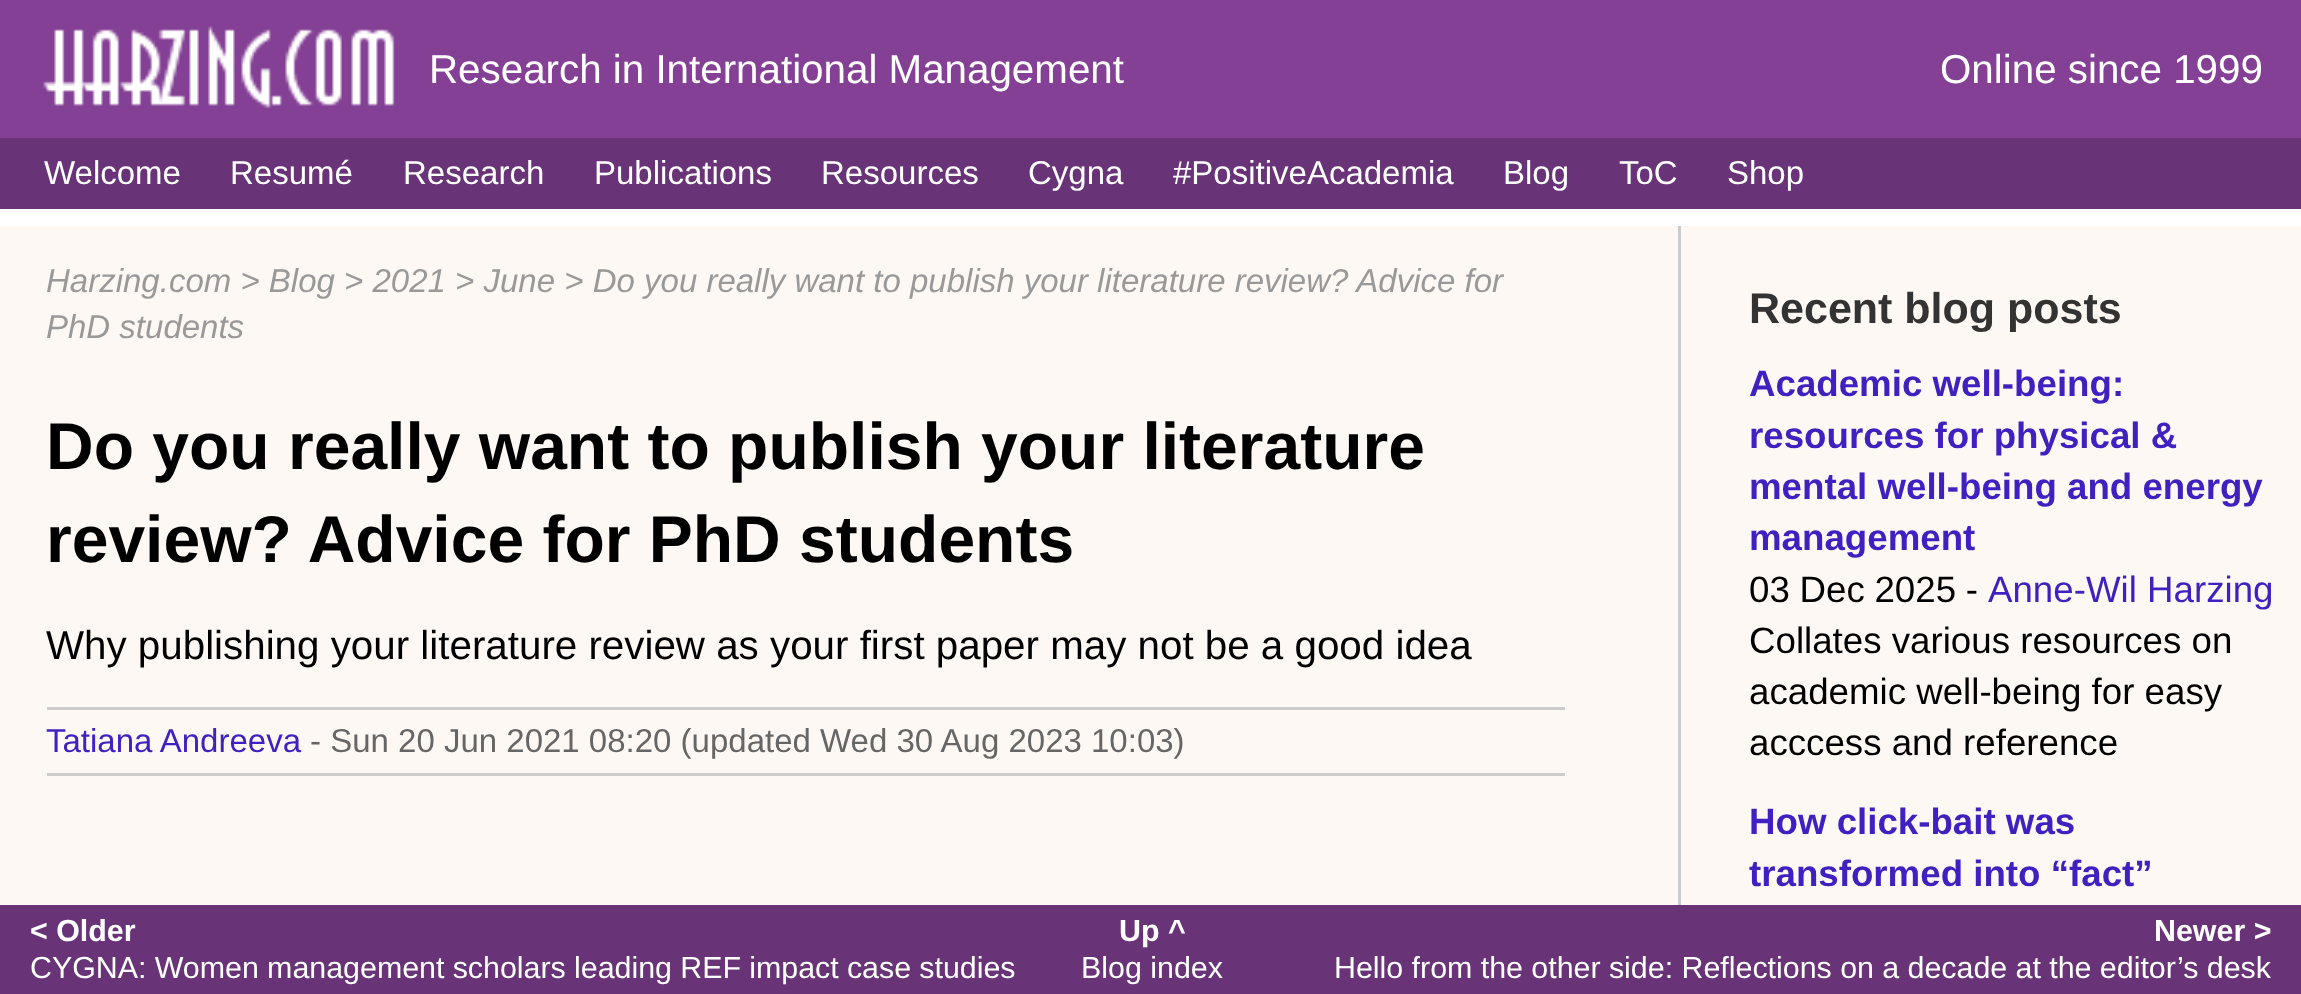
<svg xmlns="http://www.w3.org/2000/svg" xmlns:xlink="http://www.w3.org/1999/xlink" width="2301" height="994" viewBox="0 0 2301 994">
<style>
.cls-1{font:40.35px Liberation Sans;fill:#ffffff}
.cls-2{font:33px Liberation Sans;fill:#ffffff}
.cls-3{font:italic 33px Liberation Sans;fill:#999999}
.cls-4{font:bold 66px Liberation Sans;fill:#000000}
.cls-5{font:40.35px Liberation Sans;fill:#000000}
.cls-6{font:33px Liberation Sans;fill:#4020c0}
.cls-7{font:33px Liberation Sans;fill:#666666}
.cls-8{font:bold 43px Liberation Sans;fill:#333333}
.cls-9{font:bold 36.7px Liberation Sans;fill:#4020c0}
.cls-10{font:36.7px Liberation Sans;fill:#000000}
.cls-11{font:36.7px Liberation Sans;fill:#4020c0}
.cls-12{font:bold 30.4px Liberation Sans;fill:#ffffff}
.cls-13{font:30.4px Liberation Sans;fill:#ffffff}
</style>
<rect width="100%" height="100%" fill="#ffffff"/>
<rect fill="#844095" x="0" y="0" width="2301" height="138"/>
<image xlink:href="image0.png" x="43" y="25" width="352" height="84"/>
<rect fill="#693377" x="0" y="138" width="2301" height="71"/>
<rect fill="#fef8f5" x="0" y="226" width="2301" height="679"/>
<rect fill="#cccccc" x="47" y="707" width="1518" height="3"/>
<rect fill="#cccccc" x="47" y="773" width="1518" height="3"/>
<rect fill="#cccccc" x="1678" y="226" width="3" height="679"/>
<rect fill="#693377" x="0" y="905" width="2301" height="89"/>
<text class="cls-1" x="429" y="83">Research in International Management</text>
<text class="cls-1" x="1940" y="83">Online since 1999</text>
<text class="cls-2" x="44" y="184">Welcome</text>
<text class="cls-2" x="230" y="184">Resumé</text>
<text class="cls-2" x="403" y="184">Research</text>
<text class="cls-2" x="594" y="184">Publications</text>
<text class="cls-2" x="821" y="184">Resources</text>
<text class="cls-2" x="1028" y="184">Cygna</text>
<text class="cls-2" x="1173" y="184">#PositiveAcademia</text>
<text class="cls-2" x="1503" y="184">Blog</text>
<text class="cls-2" x="1619" y="184">ToC</text>
<text class="cls-2" x="1727" y="184">Shop</text>
<text class="cls-3"><tspan x="46" y="292">Harzing.com &gt; Blog &gt; 2021 &gt; June &gt; Do you really want to publish your literature review? Advice for</tspan><tspan x="46" y="338">PhD students</tspan></text>
<text class="cls-4"><tspan x="46" y="469">Do you really want to publish your literature</tspan><tspan x="46" y="562">review? Advice for PhD students</tspan></text>
<text class="cls-5" x="46" y="659">Why publishing your literature review as your first paper may not be a good idea</text>
<text class="cls-6" x="46" y="752">Tatiana Andreeva</text>
<text class="cls-7" x="310" y="752">- Sun 20 Jun 2021 08:20 (updated Wed 30 Aug 2023 10:03)</text>
<text class="cls-8" x="1749" y="323">Recent blog posts</text>
<text class="cls-9"><tspan x="1749" y="396">Academic well-being:</tspan><tspan x="1749" y="448">resources for physical &amp;</tspan><tspan x="1749" y="499">mental well-being and energy</tspan><tspan x="1749" y="550">management</tspan></text>
<text class="cls-10" x="1749" y="602" word-spacing="-0.5">03 Dec 2025 -</text>
<text class="cls-11" x="1988" y="602">Anne-Wil Harzing</text>
<text class="cls-10"><tspan x="1749" y="653">Collates various resources on</tspan><tspan x="1749" y="704">academic well-being for easy</tspan><tspan x="1749" y="755">acccess and reference</tspan></text>
<text class="cls-9"><tspan x="1749" y="834">How click-bait was</tspan><tspan x="1749" y="886">transformed into “fact”</tspan></text>
<text class="cls-12" x="30" y="941">&lt; Older</text>
<text class="cls-13" x="30" y="978" word-spacing="-0.25">CYGNA: Women management scholars leading REF impact case studies</text>
<text class="cls-12" x="1119" y="941">Up ^</text>
<text class="cls-13" x="1081" y="978">Blog index</text>
<text class="cls-12" x="2154" y="941">Newer &gt;</text>
<text class="cls-13" x="1334" y="978" word-spacing="-0.1">Hello from the other side: Reflections on a decade at the editor’s desk</text>
</svg>
